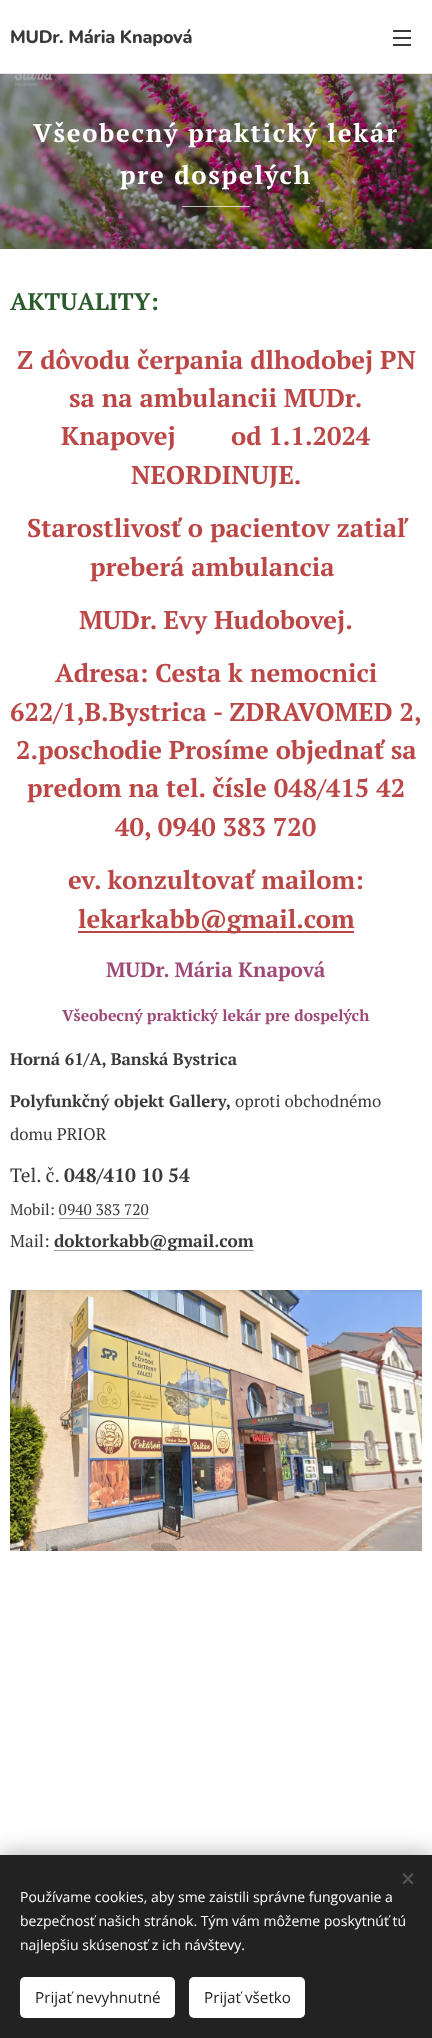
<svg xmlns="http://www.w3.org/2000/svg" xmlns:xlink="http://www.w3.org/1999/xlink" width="432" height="2038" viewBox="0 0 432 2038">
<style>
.cls-1{font:800 18px Nunito;letter-spacing:-0.25px;fill:#393939}
.cls-2{font:bold 25.6px PT Serif;letter-spacing:1.75px;fill:#ffffff}
.cls-3{font:bold 24px PT Serif;fill:#2c5b2d}
.cls-4{font:bold 25.6px PT Serif;fill:#bb4747}
.cls-5{font:bold 20.75px PT Serif;fill:#9f4976}
.cls-6{font:bold 15.8px PT Serif;fill:#9f4976}
.cls-7{font:bold 16.75px PT Serif;fill:#393939}
.cls-8{font:16.75px PT Serif;fill:#393939}
.cls-9{font:19.25px PT Serif;fill:#393939}
.cls-10{font:bold 19.25px PT Serif;fill:#393939}
.cls-11{font:15.5px PT Serif;fill:#393939}
.cls-12{font:17.25px PT Serif;fill:#393939}
.cls-13{font:bold 17.25px PT Serif;fill:#393939}
.cls-14{font:14px Open Sans;fill:#ffffff}
.cls-15{font:15.25px Open Sans;fill:#222222}
</style>
<rect width="100%" height="100%" fill="#ffffff"/>
<rect fill="#393939" x="393" y="37" width="18" height="2"/>
<rect fill="#393939" x="393" y="30" width="18" height="2"/>
<rect fill="#393939" x="393" y="44" width="18" height="2"/>
<rect fill="#e8e8e8" x="0" y="73" width="432" height="1"/>
<image xlink:href="image0.png" x="0" y="74" width="432" height="175"/>
<rect fill="#ffffff" fill-opacity="0.7" x="182" y="206" width="68" height="1"/>
<rect fill="#bb4747" x="78" y="931" width="276" height="2"/>
<rect fill="#9c9c9c" x="59" y="1218" width="90" height="1"/>
<rect fill="#9c9c9c" x="54" y="1250" width="200" height="1"/>
<image xlink:href="image1.png" x="10" y="1290" width="412" height="261"/>
<rect fill="#000000" fill-opacity="0.33" filter="blur(12.5px)" x="0" y="1855" width="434" height="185"/>
<rect fill="#222222" x="0" y="1855" width="432" height="183"/>
<path fill="#555555" d="M402.5 1883L412 1873L413.5 1874.5L404 1884.5Z"/>
<path fill="#555555" d="M404 1873L413.5 1883L412 1884.5L402.5 1874.5Z"/>
<rect fill="#ffffff" x="20" y="1977" width="155" height="41" rx="5"/>
<rect fill="#ffffff" x="189" y="1977" width="116" height="41" rx="5"/>
<text class="cls-1" x="10" y="43">MUDr. Mária Knapová</text>
<text class="cls-2" x="33" y="142">Všeobecný praktický lekár</text>
<text class="cls-2" x="120" y="184">pre dospelých</text>
<text class="cls-3" x="10" y="310">AKTUALITY:</text>
<text class="cls-4" x="17" y="369">Z dôvodu čerpania dlhodobej PN</text>
<text class="cls-4" x="69" y="407">sa na ambulancii MUDr.</text>
<text class="cls-4" xml:space="preserve" x="61" y="445">Knapovej        od 1.1.2024</text>
<text class="cls-4" x="131" y="484">NEORDINUJE.</text>
<text class="cls-4" x="27" y="537">Starostlivosť o pacientov zatiaľ</text>
<text class="cls-4" x="90" y="576">preberá ambulancia</text>
<text class="cls-4" x="79" y="629">MUDr. Evy Hudobovej.</text>
<text class="cls-4" x="55" y="682">Adresa: Cesta k nemocnici</text>
<text class="cls-4" x="10" y="721">622/1,B.Bystrica - ZDRAVOMED 2,</text>
<text class="cls-4" x="16" y="759">2.poschodie Prosíme objednať sa</text>
<text class="cls-4" x="27" y="797">predom na tel. čísle 048/415 42</text>
<text class="cls-4" x="115" y="836">40, 0940 383 720</text>
<text class="cls-4" x="68" y="889">ev. konzultovať mailom:</text>
<text class="cls-4" x="78" y="928">lekarkabb@gmail.com</text>
<text class="cls-5" x="106" y="977">MUDr. Mária Knapová</text>
<text class="cls-6" x="62" y="1021">Všeobecný praktický lekár pre dospelých</text>
<text class="cls-7" x="10" y="1065">Horná 61/A, Banská Bystrica</text>
<text class="cls-7" x="10" y="1107">Polyfunkčný objekt Gallery,</text>
<text class="cls-8" x="235" y="1107">oproti obchodnémo</text>
<text class="cls-8" x="10" y="1140">domu PRIOR</text>
<text class="cls-9" x="10" y="1182">Tel. č.</text>
<text class="cls-10" x="64" y="1182">048/410 10 54</text>
<text class="cls-11" x="10" y="1215">Mobil: 0940 383 720</text>
<text class="cls-12" x="10" y="1247">Mail:</text>
<text class="cls-13" x="54" y="1247">doktorkabb@gmail.com</text>
<text class="cls-14"><tspan x="20" y="1902">Používame cookies, aby sme zaistili správne fungovanie a</tspan><tspan x="20" y="1926">bezpečnosť našich stránok. Tým vám môžeme poskytnúť tú</tspan><tspan x="20" y="1950">najlepšiu skúsenosť z ich návštevy.</tspan></text>
<text class="cls-15" x="35" y="2003">Prijať nevyhnutné</text>
<text class="cls-15" x="204" y="2003">Prijať všetko</text>
</svg>
